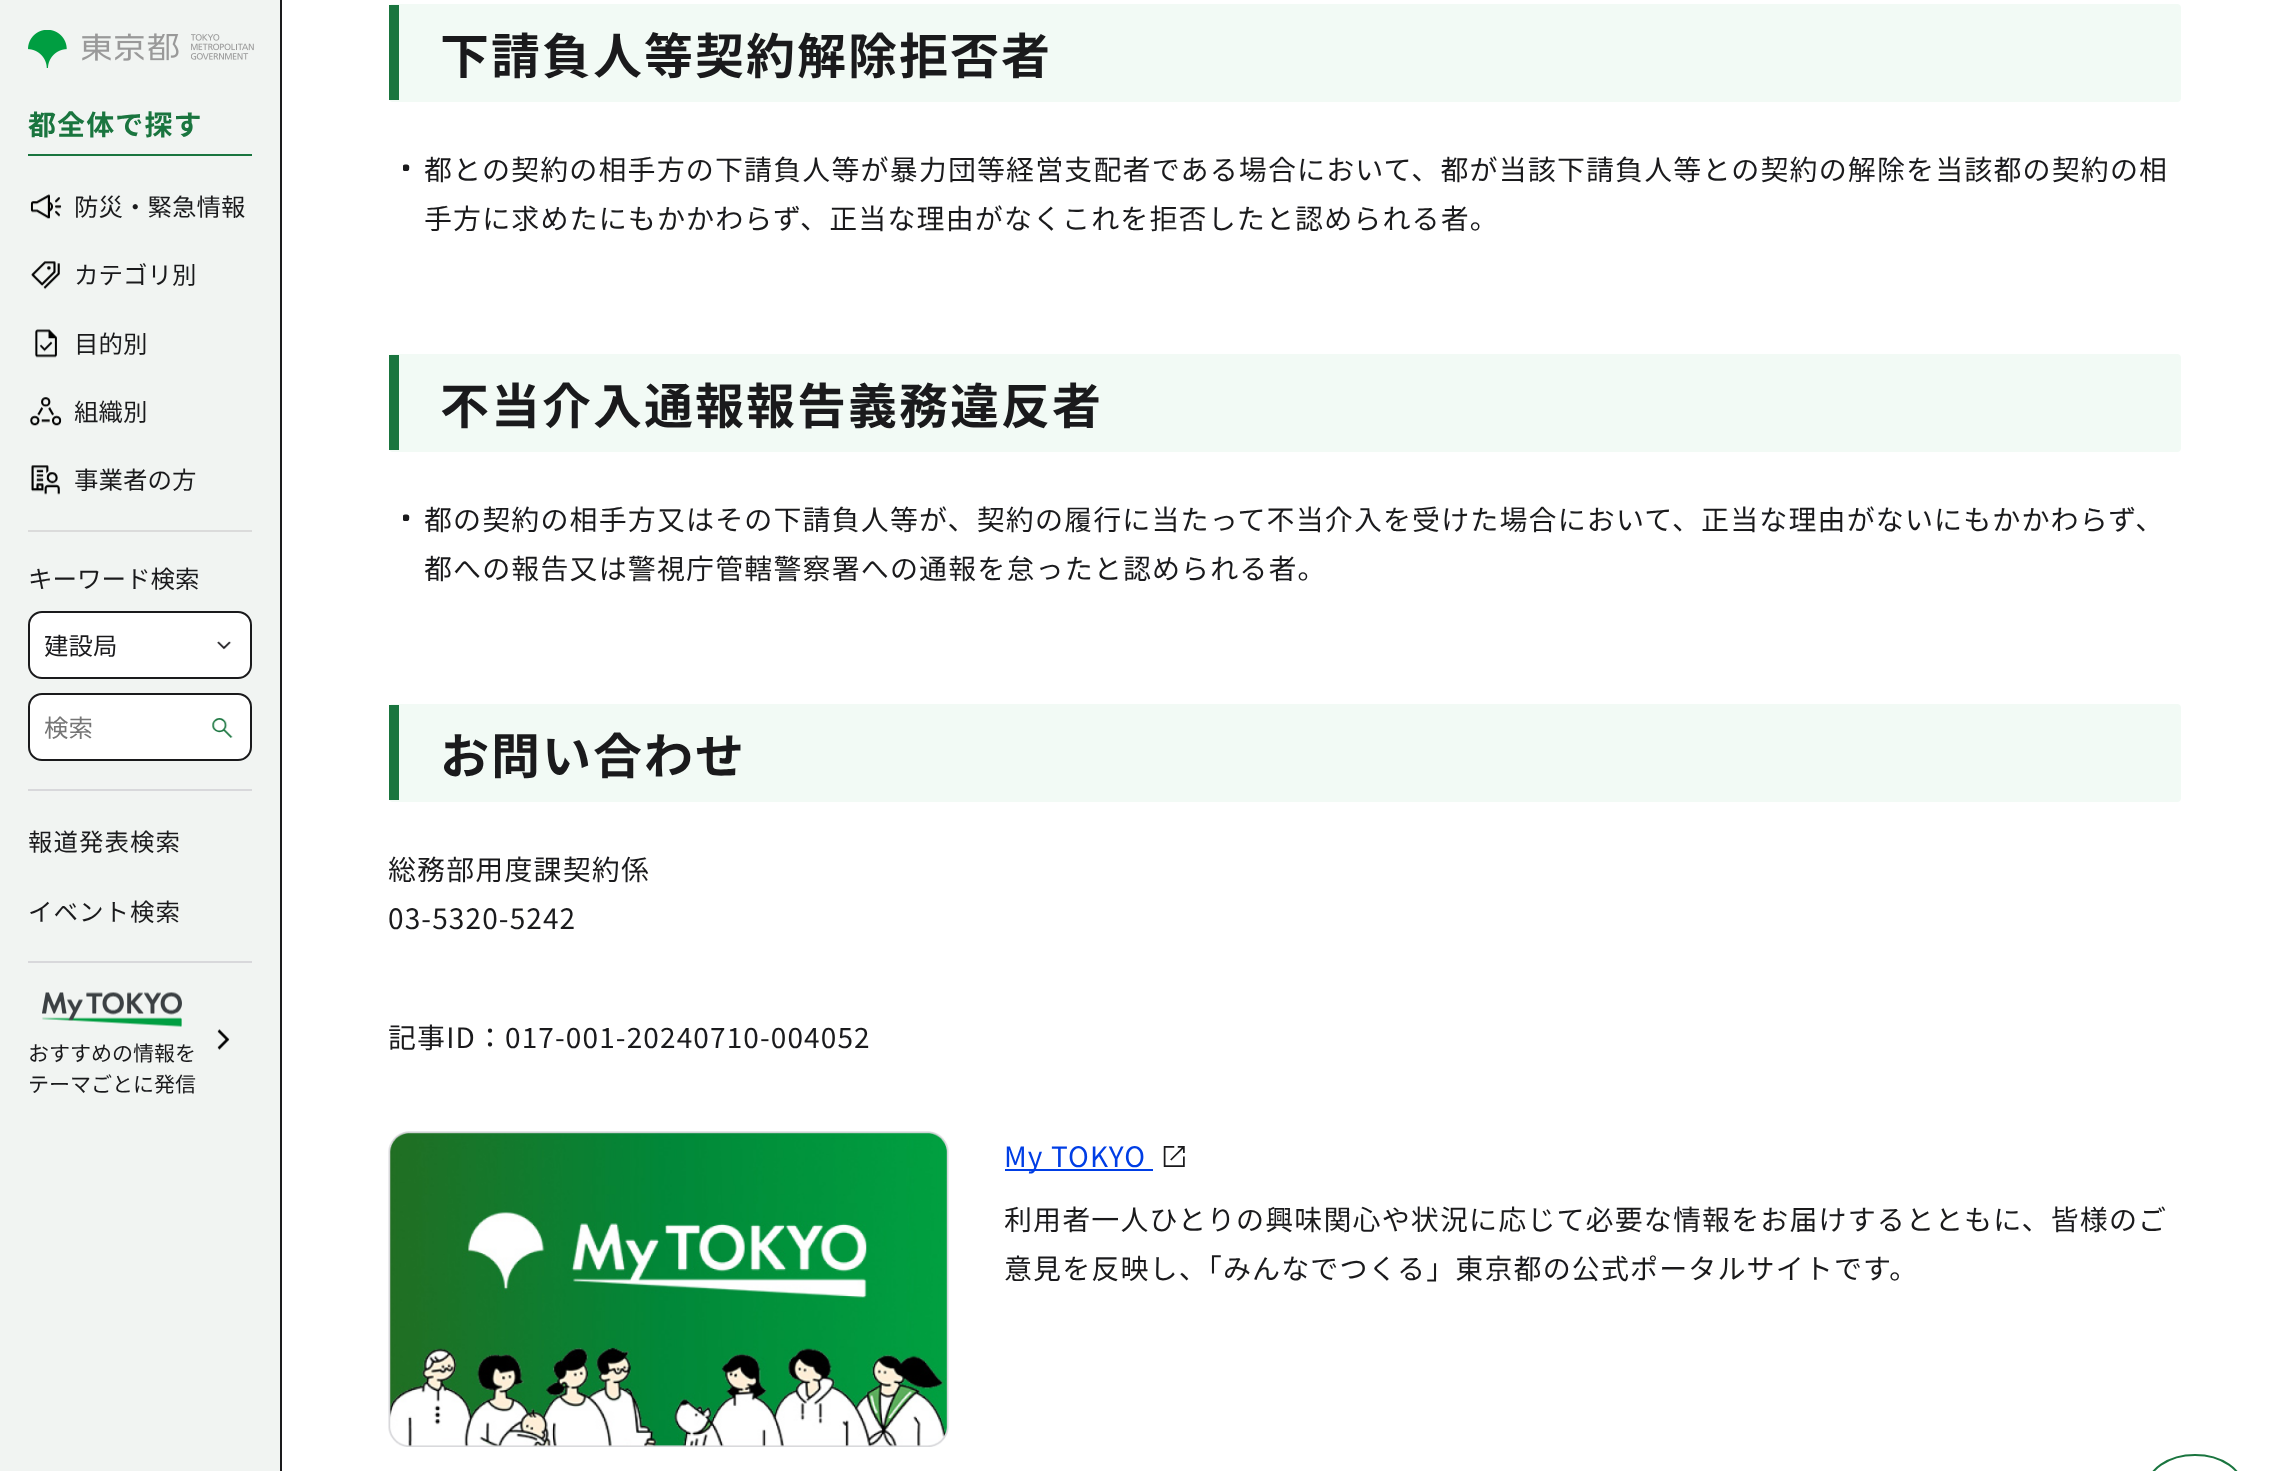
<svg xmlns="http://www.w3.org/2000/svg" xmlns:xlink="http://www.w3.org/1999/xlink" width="2285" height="1471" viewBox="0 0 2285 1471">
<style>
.cls-1{font:bold 28px Noto Sans JP;letter-spacing:1.12px;fill:#1a753f}
.cls-2{font:24.5px Noto Sans JP;fill:#1a1a1c}
.cls-3{font:24.5px Noto Sans JP;fill:#757575}
.cls-4{font:24.5px Noto Sans JP;letter-spacing:1px;fill:#1a1a1c}
.cls-5{font:21px Noto Sans JP;fill:#1a1a1c}
.cls-6{font:bold 49px Noto Sans JP;letter-spacing:2px;fill:#1a1a1c}
.cls-7{font:28px Noto Sans JP;letter-spacing:1.12px;fill:#1a1a1c}
.cls-8{font:28px Noto Sans JP;letter-spacing:1.12px;fill:#003ee5}
</style>
<rect width="100%" height="100%" fill="#ffffff"/>
<rect fill="#f1f4f2" x="0" y="0" width="280" height="1471"/>
<rect fill="#1a1a1c" x="280" y="0" width="2" height="1471"/>
<image xlink:href="image0.png" x="28" y="30" width="226" height="38"/>
<rect fill="#1a753f" x="28" y="154" width="224" height="2"/>
<image xlink:href="image1.png" x="30" y="194" width="32" height="25"/>
<image xlink:href="image2.png" x="31" y="261" width="29" height="29"/>
<image xlink:href="image3.png" x="35" y="329" width="22" height="29"/>
<image xlink:href="image4.png" x="30" y="397" width="32" height="29"/>
<image xlink:href="image5.png" x="31" y="465" width="29" height="30"/>
<rect fill="#dbdbdb" x="28" y="530" width="224" height="2"/>
<rect fill="#ffffff" x="28" y="611" width="224" height="68" rx="14"/>
<image xlink:href="image6.png" x="217" y="641" width="15" height="9"/>
<rect fill="none" stroke="#1a1a1c" stroke-width="2" x="29" y="612" width="222" height="66" rx="13"/>
<rect fill="#ffffff" stroke="#1a1a1c" stroke-width="2" x="29" y="694" width="222" height="66" rx="13"/>
<image xlink:href="image7.png" x="212" y="718" width="21" height="20"/>
<rect fill="#d8d8db" x="28" y="789" width="224" height="2"/>
<rect fill="#d8d8db" x="28" y="961" width="224" height="2"/>
<image xlink:href="image8.png" x="217" y="1029" width="13" height="21"/>
<image xlink:href="image9.png" x="42" y="992" width="140" height="35"/>
<rect fill="#f2faf5" x="389" y="4" width="1792" height="98" rx="4"/>
<rect fill="#1a753f" x="389" y="5" width="10" height="95"/>
<image xlink:href="image10.png" x="403" y="164" width="7" height="7"/>
<rect fill="#f2faf5" x="389" y="354" width="1792" height="98" rx="4"/>
<rect fill="#1a753f" x="389" y="355" width="10" height="95"/>
<image xlink:href="image10.png" x="403" y="514" width="7" height="7"/>
<rect fill="#f2faf5" x="389" y="704" width="1792" height="98" rx="4"/>
<rect fill="#1a753f" x="389" y="705" width="10" height="95"/>
<image xlink:href="image11.png" x="388" y="1131" width="561" height="316"/>
<rect fill="#003ee5" x="1005" y="1169" width="148" height="2"/>
<image xlink:href="image12.png" x="1163" y="1146" width="22" height="21"/>
<rect fill="none" stroke="#1a753f" stroke-width="2" x="2147" y="1455" width="96" height="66" rx="48"/>
<text class="cls-1" x="28" y="135">都全体で探す</text>
<text class="cls-2" x="74" y="216">防災・緊急情報</text>
<text class="cls-2" x="74" y="284">カテゴリ別</text>
<text class="cls-2" x="74" y="353">目的別</text>
<text class="cls-2" x="74" y="421">組織別</text>
<text class="cls-2" x="74" y="489">事業者の方</text>
<text class="cls-2" x="28" y="588">キーワード検索</text>
<text class="cls-2" x="44" y="655">建設局</text>
<text class="cls-3" x="44" y="737">検索</text>
<text class="cls-4" x="28" y="851">報道発表検索</text>
<text class="cls-4" x="28" y="921">イベント検索</text>
<text class="cls-5"><tspan x="28" y="1061">おすすめの情報を</tspan><tspan x="28" y="1092">テーマごとに発信</tspan></text>
<text class="cls-6" x="440" y="74">下請負人等契約解除拒否者</text>
<text class="cls-7"><tspan x="424" y="180">都との契約の相手方の下請負人等が暴力団等経営支配者である場合において、都が当該下請負人等との契約の解除を当該都の契約の相</tspan><tspan x="424" y="229">手方に求めたにもかかわらず、正当な理由がなくこれを拒否したと認められる者。</tspan></text>
<text class="cls-6" x="440" y="424">不当介入通報報告義務違反者</text>
<text class="cls-7"><tspan x="424" y="530">都の契約の相手方又はその下請負人等が、契約の履行に当たって不当介入を受けた場合において、正当な理由がないにもかかわらず、</tspan><tspan x="424" y="579">都への報告又は警視庁管轄警察署への通報を怠ったと認められる者。</tspan></text>
<text class="cls-6" x="440" y="774">お問い合わせ</text>
<text class="cls-7"><tspan x="388" y="880">総務部用度課契約係</tspan><tspan x="388" y="929">03-5320-5242</tspan></text>
<text class="cls-7" x="388" y="1048">記事ID：017-001-20240710-004052</text>
<text class="cls-8" x="1004" y="1167">My TOKYO</text>
<text class="cls-7"><tspan x="1004" y="1230">利用者一人ひとりの興味関心や状況に応じて必要な情報をお届けするとともに、皆様のご</tspan><tspan x="1004" y="1279">意見を反映し、「みんなでつくる」東京都の公式ポータルサイトです。</tspan></text>
</svg>
